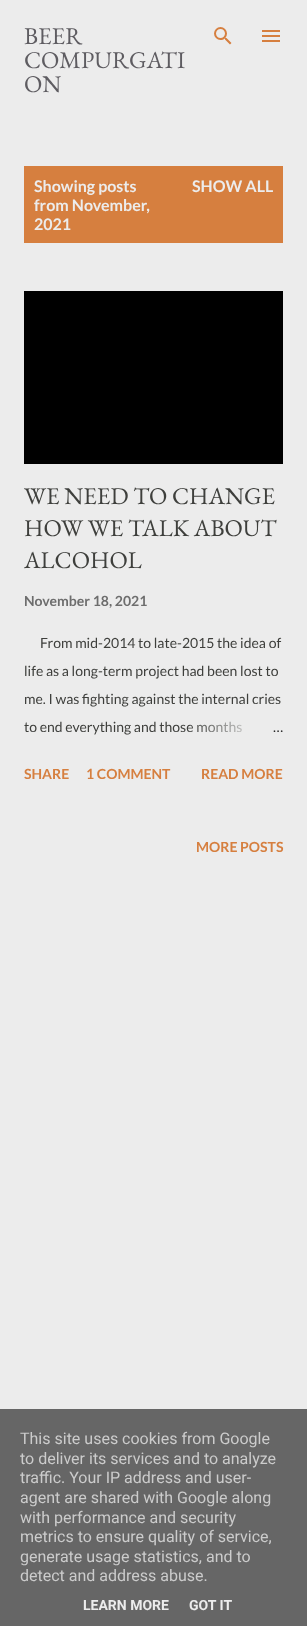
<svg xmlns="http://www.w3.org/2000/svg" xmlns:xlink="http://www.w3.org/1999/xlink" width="307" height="1626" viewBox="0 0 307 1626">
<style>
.cls-1{font:24px EB Garamond;fill:#5e5c61}
.cls-2{font:bold 16px Lato;fill:#ececec}
.cls-3{font:24px EB Garamond;fill:#3e3f3c}
.cls-4{font:bold 14px Lato;fill:#6d6d6d}
.cls-5{font:14px Lato;fill:#3e3f3c}
.cls-6{font:14px Lato;fill:#292929}
.cls-7{font:bold 14px Lato;fill:#d67f3f}
.cls-8{font:16px Roboto;fill:#cccccc}
.cls-9{font:bold 14px Roboto;fill:#ececec}
</style>
<defs>
<linearGradient id="g1" gradientUnits="userSpaceOnUse" x1="283" y1="727" x2="187" y2="727"><stop offset="0" stop-color="#ececec"/><stop offset="0.2" stop-color="#ececec"/><stop offset="1" stop-color="#ececec" stop-opacity="0"/></linearGradient>
</defs>
<rect width="100%" height="100%" fill="#ececec"/>
<image xlink:href="image0.png" x="214" y="27" width="18" height="18"/>
<image xlink:href="image1.png" x="262" y="30" width="18" height="12"/>
<rect fill="#d67f3f" x="24" y="166" width="259" height="77"/>
<rect fill="#000000" x="24" y="291" width="259" height="173"/>
<rect fill="#666666" x="0" y="1409" width="307" height="217"/>
<text class="cls-1"><tspan x="24" y="44">BEER</tspan><tspan x="24" y="68">COMPURGATI</tspan><tspan x="24" y="92">ON</tspan></text>
<text class="cls-2"><tspan x="34" y="192">Showing posts</tspan><tspan x="34" y="211">from November,</tspan><tspan x="34" y="230">2021</tspan></text>
<text class="cls-2" x="192" y="192">SHOW ALL</text>
<text class="cls-3"><tspan x="24" y="504">WE NEED TO CHANGE</tspan><tspan x="24" y="536">HOW WE TALK ABOUT</tspan><tspan x="24" y="568">ALCOHOL</tspan></text>
<text class="cls-4" x="24" y="606">November 18, 2021</text>
<text class="cls-5" x="40" y="648">From mid-2014 to late-2015 the idea of</text>
<text class="cls-5" x="24" y="676">life as a long-term project had been lost to</text>
<text class="cls-5" x="24" y="704">me. I was fighting against the internal cries</text>
<text class="cls-5" x="24" y="732">to end everything and those months</text>
<rect fill="url(#g1)" x="189" y="721" width="53" height="12"/>
<text class="cls-6" x="273" y="732">…</text>
<text class="cls-7" x="24" y="779">SHARE</text>
<text class="cls-7" x="86" y="779">1 COMMENT</text>
<text class="cls-7" x="201" y="779">READ MORE</text>
<text class="cls-7" x="196" y="852">MORE POSTS</text>
<text class="cls-8"><tspan x="20" y="1444">This site uses cookies from Google</tspan><tspan x="20" y="1464">to deliver its services and to analyze</tspan><tspan x="20" y="1483">traffic. Your IP address and user-</tspan><tspan x="20" y="1503">agent are shared with Google along</tspan><tspan x="20" y="1523">with performance and security</tspan><tspan x="20" y="1542">metrics to ensure quality of service,</tspan><tspan x="20" y="1562">generate usage statistics, and to</tspan><tspan x="20" y="1581">detect and address abuse.</tspan></text>
<text class="cls-9" x="83" y="1610">LEARN MORE</text>
<text class="cls-9" x="189" y="1610">GOT IT</text>
</svg>
